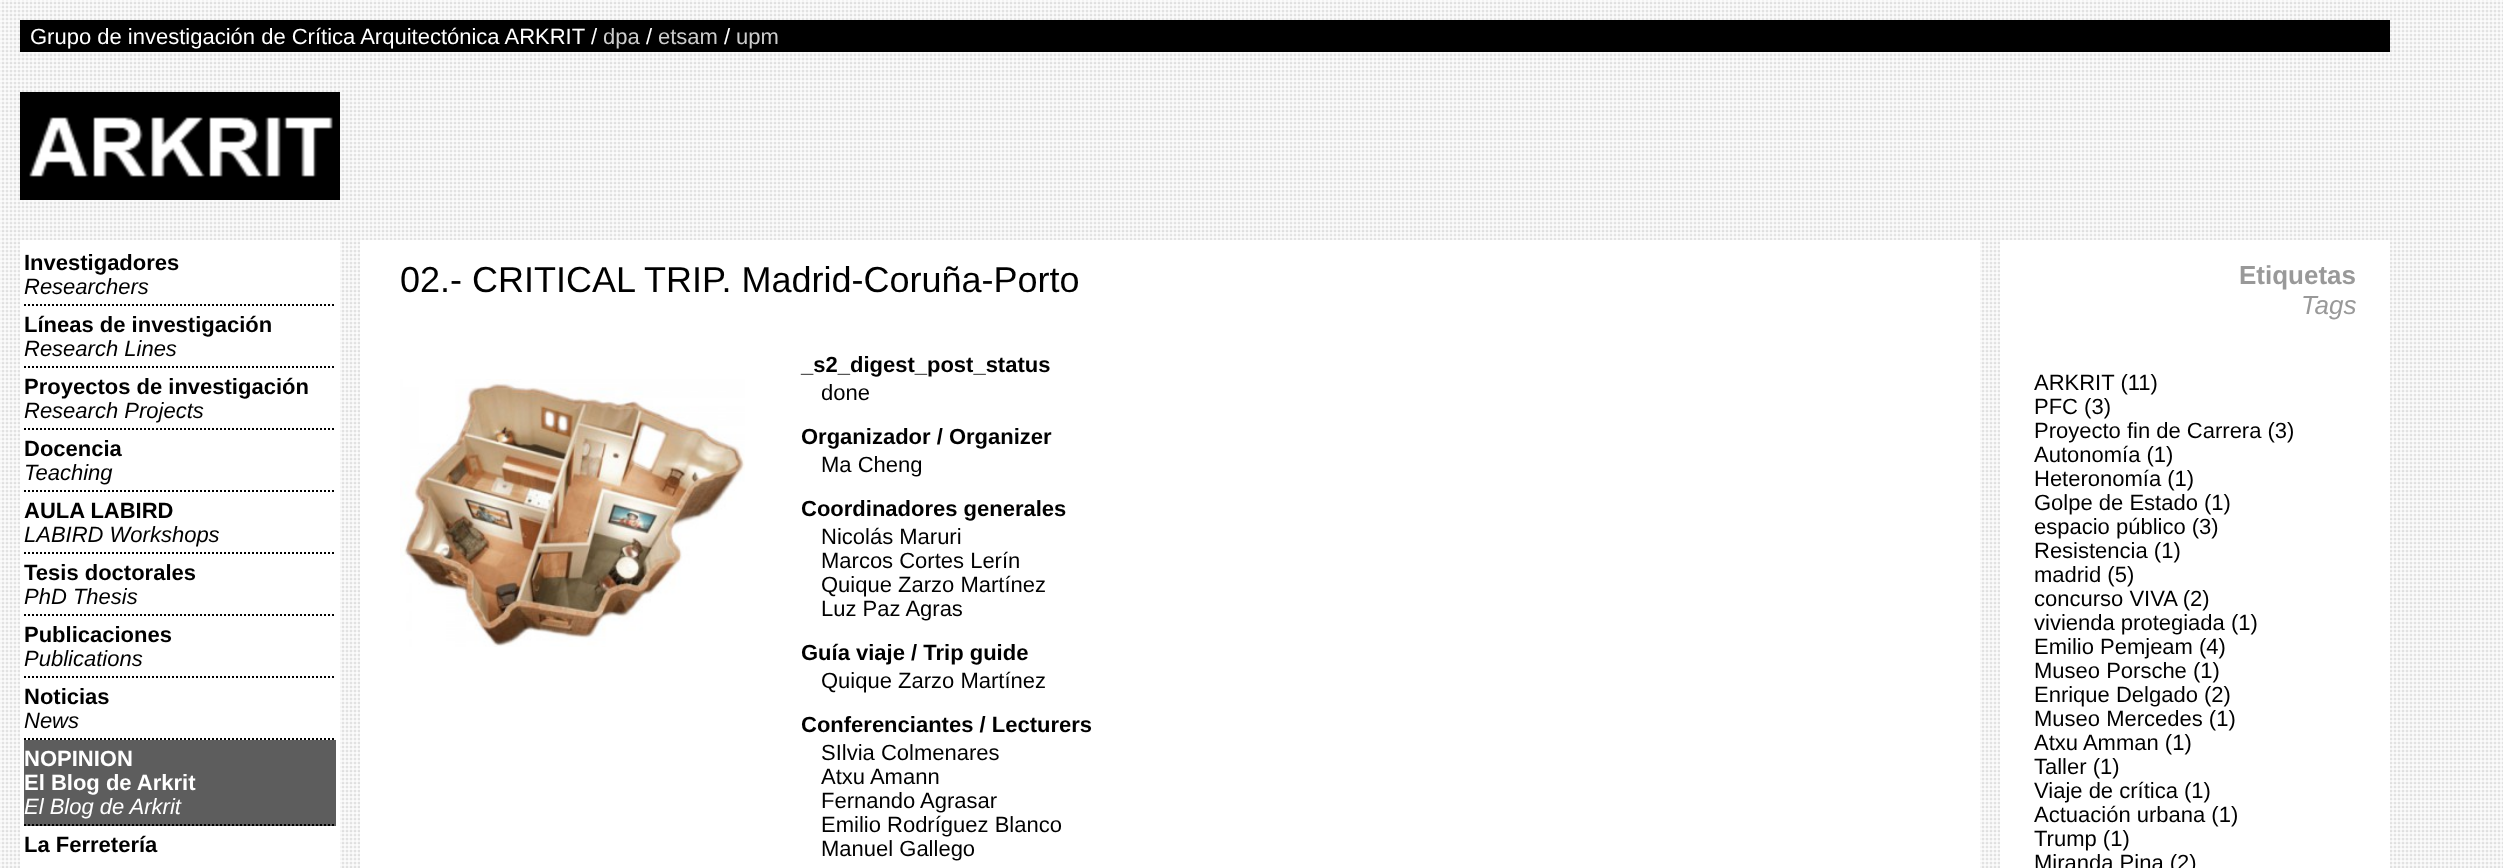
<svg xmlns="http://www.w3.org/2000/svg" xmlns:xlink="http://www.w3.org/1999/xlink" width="2503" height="868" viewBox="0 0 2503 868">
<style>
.cls-1{font:22px Liberation Sans;fill:#ffffff}
.cls-2{font:22px Liberation Sans;fill:#cccccc}
.cls-3{font:bold 22px Liberation Sans;fill:#000000}
.cls-4{font:italic 22px Liberation Sans;fill:#000000}
.cls-5{font:bold 22px Liberation Sans;fill:#ffffff}
.cls-6{font:italic 22px Liberation Sans;fill:#ffffff}
.cls-7{font:36px Liberation Sans;fill:#000000}
.cls-8{font:22px Liberation Sans;fill:#000000}
.cls-9{font:bold 26px Liberation Sans;fill:#999999}
.cls-10{font:italic 26px Liberation Sans;fill:#999999}
</style>
<rect width="100%" height="100%" fill="#ffffff"/>
<image xlink:href="image0.png" x="0" y="0" width="2503" height="868"/>
<rect fill="#000000" x="20" y="20" width="2370" height="32"/>
<image xlink:href="image1.png" x="20" y="92" width="320" height="108"/>
<rect fill="#ffffff" x="20" y="240" width="320" height="628"/>
<path fill="none" stroke="#000000" stroke-width="2" stroke-dasharray="2 2" d="M24 305H336"/>
<path fill="none" stroke="#000000" stroke-width="2" stroke-dasharray="2 2" d="M24 367H336"/>
<path fill="none" stroke="#000000" stroke-width="2" stroke-dasharray="2 2" d="M24 429H336"/>
<path fill="none" stroke="#000000" stroke-width="2" stroke-dasharray="2 2" d="M24 491H336"/>
<path fill="none" stroke="#000000" stroke-width="2" stroke-dasharray="2 2" d="M24 553H336"/>
<path fill="none" stroke="#000000" stroke-width="2" stroke-dasharray="2 2" d="M24 615H336"/>
<path fill="none" stroke="#000000" stroke-width="2" stroke-dasharray="2 2" d="M24 677H336"/>
<path fill="none" stroke="#000000" stroke-width="2" stroke-dasharray="2 2" d="M24 739H336"/>
<rect fill="#5d5d5d" x="24" y="740" width="312" height="86"/>
<path fill="none" stroke="#000000" stroke-width="2" stroke-dasharray="2 2" d="M24 825H336"/>
<rect fill="#ffffff" x="360" y="240" width="1620" height="628"/>
<image xlink:href="image2.png" x="400" y="379" width="345" height="268"/>
<rect fill="#ffffff" x="2000" y="240" width="390" height="628"/>
<text class="cls-1" x="30" y="44">Grupo de investigación de Crítica Arquitectónica ARKRIT /</text>
<text class="cls-2" x="603" y="44">dpa</text>
<text class="cls-1" x="646" y="44">/</text>
<text class="cls-2" x="658" y="44">etsam</text>
<text class="cls-1" x="724" y="44">/</text>
<text class="cls-2" x="736" y="44">upm</text>
<text class="cls-3" x="24" y="270">Investigadores</text>
<text class="cls-4" x="24" y="294">Researchers</text>
<text class="cls-3" x="24" y="332">Líneas de investigación</text>
<text class="cls-4" x="24" y="356">Research Lines</text>
<text class="cls-3" x="24" y="394">Proyectos de investigación</text>
<text class="cls-4" x="24" y="418">Research Projects</text>
<text class="cls-3" x="24" y="456">Docencia</text>
<text class="cls-4" x="24" y="480">Teaching</text>
<text class="cls-3" x="24" y="518">AULA LABIRD</text>
<text class="cls-4" x="24" y="542">LABIRD Workshops</text>
<text class="cls-3" x="24" y="580">Tesis doctorales</text>
<text class="cls-4" x="24" y="604">PhD Thesis</text>
<text class="cls-3" x="24" y="642">Publicaciones</text>
<text class="cls-4" x="24" y="666">Publications</text>
<text class="cls-3" x="24" y="704">Noticias</text>
<text class="cls-4" x="24" y="728">News</text>
<text class="cls-5"><tspan x="24" y="766">NOPINION</tspan><tspan x="24" y="790">El Blog de Arkrit</tspan></text>
<text class="cls-6" x="24" y="814">El Blog de Arkrit</text>
<text class="cls-3" x="24" y="852">La Ferretería</text>
<text class="cls-7" x="400" y="292">02.- CRITICAL TRIP. Madrid-Coruña-Porto</text>
<text class="cls-3" x="801" y="372">_s2_digest_post_status</text>
<text class="cls-8" x="821" y="400">done</text>
<text class="cls-3" x="801" y="444">Organizador / Organizer</text>
<text class="cls-8" x="821" y="472">Ma Cheng</text>
<text class="cls-3" x="801" y="516">Coordinadores generales</text>
<text class="cls-8"><tspan x="821" y="544">Nicolás Maruri</tspan><tspan x="821" y="568">Marcos Cortes Lerín</tspan><tspan x="821" y="592">Quique Zarzo Martínez</tspan><tspan x="821" y="616">Luz Paz Agras</tspan></text>
<text class="cls-3" x="801" y="660">Guía viaje / Trip guide</text>
<text class="cls-8" x="821" y="688">Quique Zarzo Martínez</text>
<text class="cls-3" x="801" y="732">Conferenciantes / Lecturers</text>
<text class="cls-8"><tspan x="821" y="760">SIlvia Colmenares</tspan><tspan x="821" y="784">Atxu Amann</tspan><tspan x="821" y="808">Fernando Agrasar</tspan><tspan x="821" y="832">Emilio Rodríguez Blanco</tspan><tspan x="821" y="856">Manuel Gallego</tspan></text>
<text class="cls-9" x="2239" y="284">Etiquetas</text>
<text class="cls-10" x="2301" y="314">Tags</text>
<text class="cls-8"><tspan x="2034" y="390">ARKRIT (11)</tspan><tspan x="2034" y="414">PFC (3)</tspan><tspan x="2034" y="438">Proyecto fin de Carrera (3)</tspan><tspan x="2034" y="462">Autonomía (1)</tspan><tspan x="2034" y="486">Heteronomía (1)</tspan><tspan x="2034" y="510">Golpe de Estado (1)</tspan><tspan x="2034" y="534">espacio público (3)</tspan><tspan x="2034" y="558">Resistencia (1)</tspan><tspan x="2034" y="582">madrid (5)</tspan><tspan x="2034" y="606">concurso VIVA (2)</tspan><tspan x="2034" y="630">vivienda protegiada (1)</tspan><tspan x="2034" y="654">Emilio Pemjeam (4)</tspan><tspan x="2034" y="678">Museo Porsche (1)</tspan><tspan x="2034" y="702">Enrique Delgado (2)</tspan><tspan x="2034" y="726">Museo Mercedes (1)</tspan><tspan x="2034" y="750">Atxu Amman (1)</tspan><tspan x="2034" y="774">Taller (1)</tspan><tspan x="2034" y="798">Viaje de crítica (1)</tspan><tspan x="2034" y="822">Actuación urbana (1)</tspan><tspan x="2034" y="846">Trump (1)</tspan><tspan x="2034" y="870">Miranda Pina (2)</tspan></text>
</svg>
